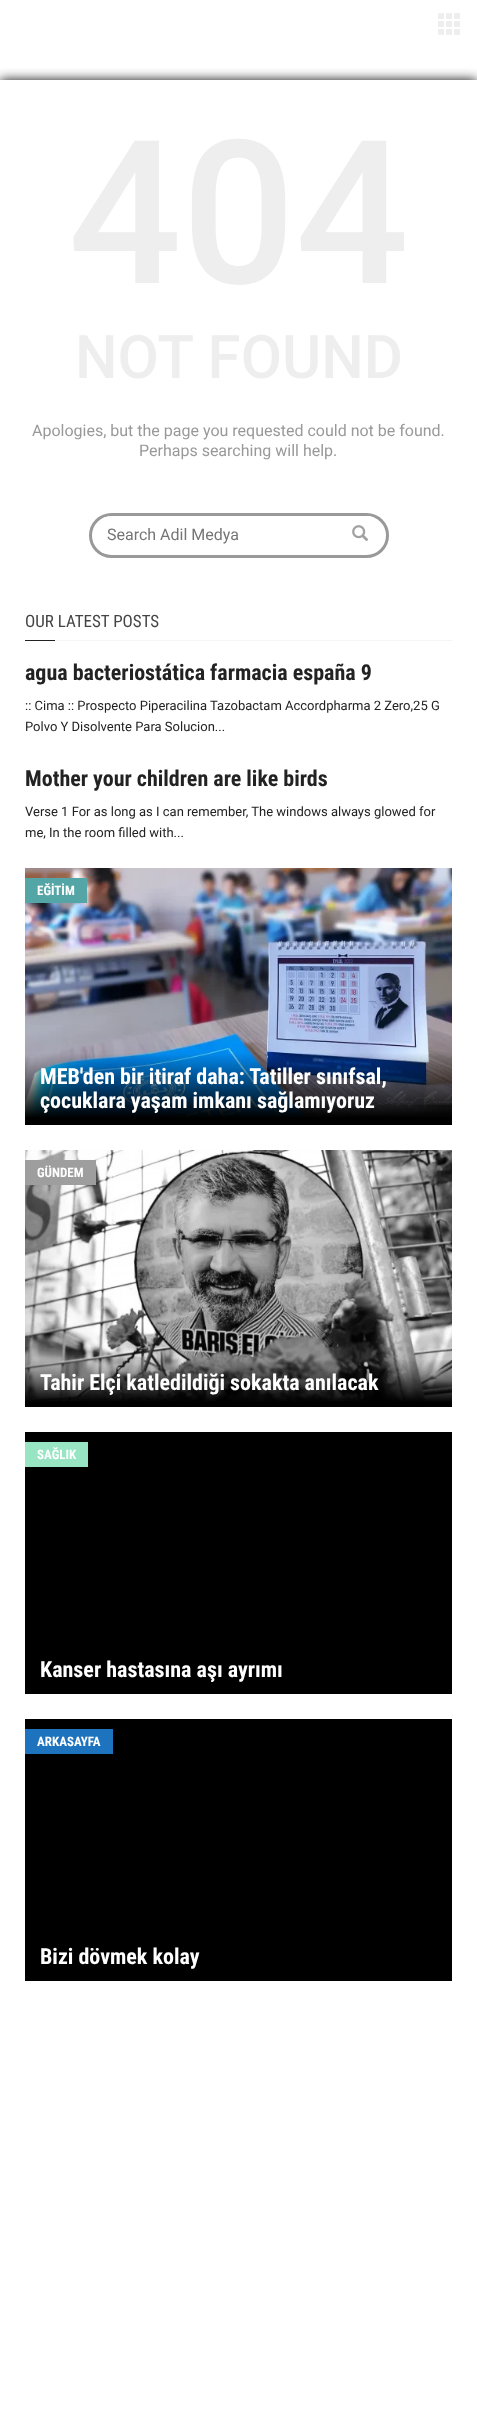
<svg xmlns="http://www.w3.org/2000/svg" xmlns:xlink="http://www.w3.org/1999/xlink" width="477" height="2434" viewBox="0 0 477 2434">
<style>
.cls-1{font:500 200px Roboto;fill:#eeeeee}
.cls-2{font:500 60px Roboto;fill:#eeeeee}
.cls-3{font:16px Roboto;fill:#999999}
.cls-4{font:16px Roboto;fill:#757575}
.cls-5{font:17px Roboto Condensed;fill:#444444}
.cls-6{font:bold 22px Roboto Condensed;fill:#222222}
.cls-7{font:13px Roboto;fill:#222222}
.cls-8{font:bold 13px Roboto Condensed;fill:#ffffff}
.cls-9{font:bold 22px Roboto Condensed;fill:#ffffff}
</style>
<defs>
<clipPath id="clip1"><rect x="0" y="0" width="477" height="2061"/></clipPath>
<clipPath id="clip2"><rect x="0" y="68" width="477" height="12"/></clipPath>
<clipPath id="clip3"><rect x="92" y="516" width="294" height="39" rx="19.5"/></clipPath>
</defs>
<rect width="100%" height="100%" fill="#ffffff"/>
<image xlink:href="image0.png" x="438" y="13" width="22" height="22"/>
<g clip-path="url(#clip1)">
<g clip-path="url(#clip2)">
<rect fill="#0a0a0a" filter="blur(6px)" x="0" y="80" width="477" height="1981"/>
</g>
</g>
<rect fill="none" stroke="#999999" stroke-width="3" x="90.5" y="514.5" width="297" height="42" rx="21"/>
<g clip-path="url(#clip3)">
<rect fill="#ffffff" x="102" y="517" width="240" height="36"/>
<rect fill="#ffffff" x="345" y="516" width="30" height="36"/>
</g>
<image xlink:href="image1.png" x="352" y="525" width="16" height="16"/>
<rect fill="#f5f5f5" x="55" y="640" width="397" height="1"/>
<rect fill="#222222" x="25" y="640" width="30" height="1"/>
<image xlink:href="image2.png" x="25" y="868" width="427" height="257"/>
<rect fill="#54a5a5" x="25" y="878" width="62" height="25"/>
<image xlink:href="image3.png" x="25" y="1150" width="427" height="257"/>
<rect fill="#9e9e9e" x="25" y="1160" width="71" height="25"/>
<rect fill="#000000" x="25" y="1432" width="427" height="262"/>
<rect fill="#97e5c3" x="25" y="1442" width="63" height="25"/>
<rect fill="#000000" x="25" y="1719" width="427" height="262"/>
<rect fill="#1e73be" x="25" y="1729" width="88" height="25"/>
<text class="cls-1" x="68" y="283">404</text>
<text class="cls-2" x="75" y="378">NOT FOUND</text>
<text class="cls-3" x="32" y="436">Apologies, but the page you requested could not be found.</text>
<text class="cls-3" x="139" y="456">Perhaps searching will help.</text>
<text class="cls-4" x="107" y="540">Search Adil Medya</text>
<text class="cls-5" x="25" y="627">OUR LATEST POSTS</text>
<text class="cls-6" x="25" y="680">agua bacteriostática farmacia españa 9</text>
<text class="cls-7"><tspan x="25" y="710">:: Cima :: Prospecto Piperacilina Tazobactam Accordpharma 2 Zero,25 G</tspan><tspan x="25" y="731">Polvo Y Disolvente Para Solucion...</tspan></text>
<text class="cls-6" x="25" y="786">Mother your children are like birds</text>
<text class="cls-7"><tspan x="25" y="816">Verse 1 For as long as I can remember, The windows always glowed for</tspan><tspan x="25" y="837">me, In the room filled with...</tspan></text>
<text class="cls-8" x="37" y="895">EĞİTİM</text>
<text class="cls-9"><tspan x="40" y="1084">MEB'den bir itiraf daha: Tatiller sınıfsal,</tspan><tspan x="40" y="1108">çocuklara yaşam imkanı sağlamıyoruz</tspan></text>
<text class="cls-8" x="37" y="1177">GÜNDEM</text>
<text class="cls-9" x="40" y="1390">Tahir Elçi katledildiği sokakta anılacak</text>
<text class="cls-8" x="37" y="1459">SAĞLIK</text>
<text class="cls-9" x="40" y="1677">Kanser hastasına aşı ayrımı</text>
<text class="cls-8" x="37" y="1746">ARKASAYFA</text>
<text class="cls-9" x="40" y="1964">Bizi dövmek kolay</text>
</svg>
